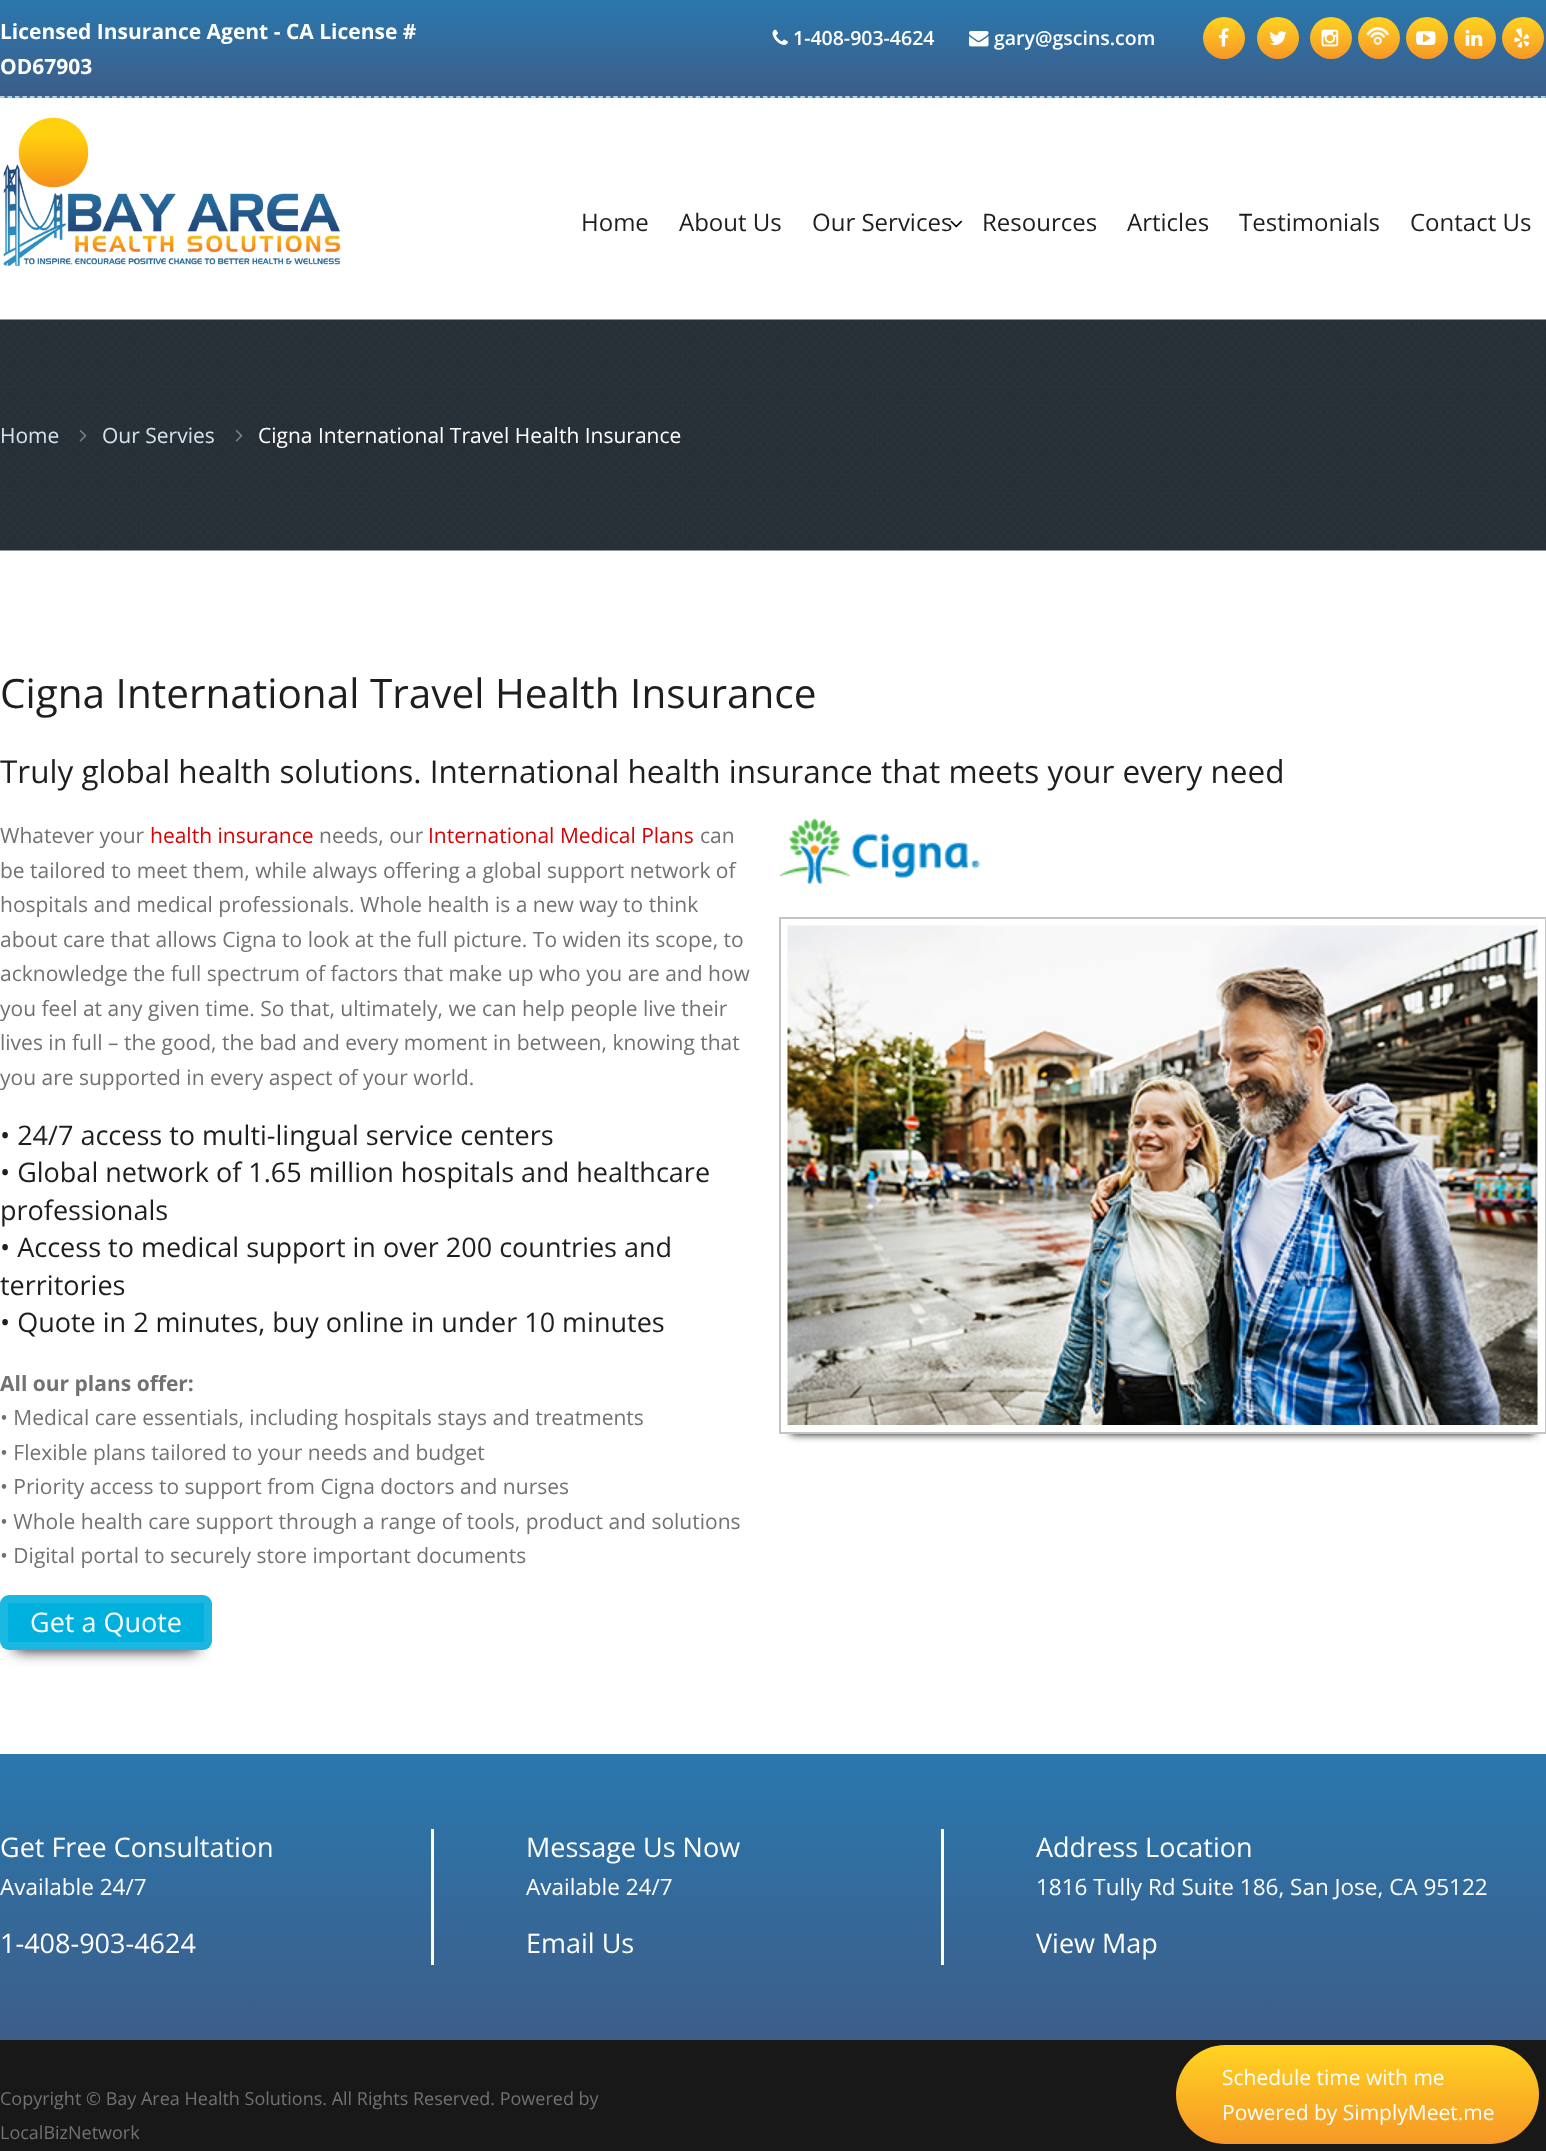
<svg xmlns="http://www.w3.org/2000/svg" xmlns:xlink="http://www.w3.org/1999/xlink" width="1546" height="2151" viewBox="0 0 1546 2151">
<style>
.cls-1{font:bold 21px Open Sans;fill:#ffffff}
.cls-2{font:600 19.5px Open Sans;fill:#ffffff}
.cls-3{font:24px Open Sans;fill:#1e1e1e}
.cls-4{font:21px Open Sans;fill:#d4e3ee}
.cls-5{font:21px Open Sans;fill:#ffffff}
.cls-6{font:40.5px Open Sans;fill:#1e1e1e}
.cls-7{font:31.5px Open Sans;fill:#1e1e1e}
.cls-8{font:21px Open Sans;fill:#727272}
.cls-9{font:21px Open Sans;fill:#d70204}
.cls-10{font:27px Open Sans;fill:#1e1e1e}
.cls-11{font:bold 21px Open Sans;fill:#727272}
.cls-12{font:27px Open Sans;fill:#ffffff}
.cls-13{font:22.5px Open Sans;fill:#ffffff}
.cls-14{font:18px Open Sans;fill:#727272}
</style>
<defs>
<linearGradient id="g1" gradientUnits="userSpaceOnUse" x1="773" y1="0" x2="773" y2="96"><stop offset="0" stop-color="#2a78ae"/><stop offset="1" stop-color="#3d5d89"/></linearGradient>
<linearGradient id="g2" gradientUnits="userSpaceOnUse" x1="773" y1="96" x2="773" y2="192"><stop offset="0" stop-color="#2a78ae"/><stop offset="1" stop-color="#3d5d89"/></linearGradient>
<linearGradient id="g3" gradientUnits="userSpaceOnUse" x1="1224" y1="16" x2="1224" y2="59"><stop offset="0" stop-color="#ffd421"/><stop offset="1" stop-color="#f79727"/></linearGradient>
<linearGradient id="g4" gradientUnits="userSpaceOnUse" x1="1278" y1="16" x2="1278" y2="59"><stop offset="0" stop-color="#ffd421"/><stop offset="1" stop-color="#f79727"/></linearGradient>
<linearGradient id="g5" gradientUnits="userSpaceOnUse" x1="1331" y1="16" x2="1331" y2="59"><stop offset="0" stop-color="#ffd421"/><stop offset="1" stop-color="#f79727"/></linearGradient>
<linearGradient id="g6" gradientUnits="userSpaceOnUse" x1="1379" y1="16" x2="1379" y2="59"><stop offset="0" stop-color="#ffd421"/><stop offset="1" stop-color="#f79727"/></linearGradient>
<linearGradient id="g7" gradientUnits="userSpaceOnUse" x1="1427" y1="16" x2="1427" y2="59"><stop offset="0" stop-color="#ffd421"/><stop offset="1" stop-color="#f79727"/></linearGradient>
<linearGradient id="g8" gradientUnits="userSpaceOnUse" x1="1475" y1="16" x2="1475" y2="59"><stop offset="0" stop-color="#ffd421"/><stop offset="1" stop-color="#f79727"/></linearGradient>
<linearGradient id="g9" gradientUnits="userSpaceOnUse" x1="1523" y1="16" x2="1523" y2="59"><stop offset="0" stop-color="#ffd421"/><stop offset="1" stop-color="#f79727"/></linearGradient>
<clipPath id="clip1"><rect x="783" y="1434" width="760" height="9"/></clipPath>
<linearGradient id="g10" gradientUnits="userSpaceOnUse" x1="773" y1="1754" x2="773" y2="2040"><stop offset="0" stop-color="#2a78ae"/><stop offset="1" stop-color="#3d5d89"/></linearGradient>
<linearGradient id="g11" gradientUnits="userSpaceOnUse" x1="1358" y1="2045" x2="1358" y2="2144"><stop offset="0" stop-color="#ffd421"/><stop offset="1" stop-color="#f79727"/></linearGradient>
</defs>
<rect width="100%" height="100%" fill="#ffffff"/>
<rect fill="url(#g1)" x="0" y="0" width="1546" height="96"/>
<rect fill="url(#g2)" x="0" y="96" width="1546" height="2"/>
<path fill="none" stroke="#e9e9e9" stroke-width="1.5" stroke-dasharray="4.5 2.98" d="M0 97H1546.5"/>
<image xlink:href="image0.png" x="772" y="29" width="16" height="16"/>
<image xlink:href="image1.png" x="969" y="31" width="20" height="16"/>
<circle fill="url(#g3)" cx="1224" cy="38" r="21"/>
<image xlink:href="image2.png" x="1219" y="28" width="10" height="19"/>
<circle fill="url(#g4)" cx="1278" cy="38" r="21"/>
<image xlink:href="image3.png" x="1269" y="31" width="18" height="14"/>
<circle fill="url(#g5)" cx="1331" cy="38" r="21"/>
<image xlink:href="image4.png" x="1321" y="29" width="18" height="18"/>
<circle fill="url(#g6)" cx="1379" cy="38" r="21"/>
<image xlink:href="image5.png" x="1366" y="27" width="23" height="18"/>
<circle fill="url(#g7)" cx="1427" cy="38" r="21"/>
<image xlink:href="image6.png" x="1416" y="31" width="20" height="14"/>
<circle fill="url(#g8)" cx="1475" cy="38" r="21"/>
<image xlink:href="image7.png" x="1465" y="29" width="18" height="17"/>
<circle fill="url(#g9)" cx="1523" cy="38" r="21"/>
<image xlink:href="image8.png" x="1514" y="28" width="16" height="20"/>
<image xlink:href="image9.png" x="3" y="117" width="338" height="149"/>
<image xlink:href="image11.png" x="0" y="319" width="1546" height="232"/>
<image xlink:href="image12.png" x="79" y="430" width="8" height="12"/>
<image xlink:href="image13.png" x="235" y="430" width="8" height="12"/>
<image xlink:href="image14.png" x="779" y="818" width="201" height="66"/>
<g clip-path="url(#clip1)">
<rect fill="#000000" filter="blur(4.5px)" x="791" y="941" width="744" height="493"/>
</g>
<rect fill="none" stroke="#c4c4c4" stroke-width="2" x="780" y="918" width="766" height="515"/>
<image xlink:href="image15.png" x="787" y="925" width="751" height="500"/>
<rect fill="#111111" filter="blur(7.5px)" x="15" y="1625" width="182" height="25"/>
<rect fill="#00b0dd" x="0" y="1595" width="212" height="55" rx="9"/>
<rect fill="none" stroke="#ffffff" stroke-opacity="0.1" stroke-width="8" x="4" y="1599" width="204" height="47" rx="5"/>
<rect fill="url(#g10)" x="0" y="1754" width="1546" height="286"/>
<rect fill="#ffffff" x="431" y="1829" width="3" height="136"/>
<rect fill="#ffffff" x="941" y="1829" width="3" height="136"/>
<rect fill="#181818" x="0" y="2040" width="1546" height="111"/>
<rect fill="url(#g11)" x="1176" y="2045" width="363" height="99" rx="49.5"/>
<text class="cls-1"><tspan x="0" y="39">Licensed Insurance Agent - CA License #</tspan><tspan x="0" y="74">OD67903</tspan></text>
<text class="cls-2" x="793" y="45">1-408-903-4624</text>
<text class="cls-2" x="994" y="45">gary@gscins.com</text>
<text class="cls-3" x="581" y="231">Home</text>
<text class="cls-3" x="679" y="231">About Us</text>
<text class="cls-3" x="812" y="231">Our Services</text>
<image xlink:href="image10.png" x="950" y="220" width="13" height="8"/>
<text class="cls-3" x="982" y="231">Resources</text>
<text class="cls-3" x="1127" y="231">Articles</text>
<text class="cls-3" x="1239" y="231">Testimonials</text>
<text class="cls-3" x="1410" y="231">Contact Us</text>
<text class="cls-4" x="0" y="443">Home</text>
<text class="cls-4" x="102" y="443">Our Servies</text>
<text class="cls-5" x="258" y="443">Cigna International Travel Health Insurance</text>
<text class="cls-6" x="0" y="708">Cigna International Travel Health Insurance</text>
<text class="cls-7" x="0" y="783">Truly global health solutions. International health insurance that meets your every need</text>
<text class="cls-8" x="0" y="843">Whatever your</text>
<text class="cls-9" x="150" y="843">health insurance</text>
<text class="cls-8" x="319" y="843">needs, our</text>
<text class="cls-9" x="428" y="843">International Medical Plans</text>
<text class="cls-8" x="700" y="843">can</text>
<text class="cls-8"><tspan x="0" y="878">be tailored to meet them, while always offering a global support network of</tspan><tspan x="0" y="912">hospitals and medical professionals. Whole health is a new way to think</tspan><tspan x="0" y="947">about care that allows Cigna to look at the full picture. To widen its scope, to</tspan><tspan x="0" y="981">acknowledge the full spectrum of factors that make up who you are and how</tspan><tspan x="0" y="1016">you feel at any given time. So that, ultimately, we can help people live their</tspan><tspan x="0" y="1050">lives in full – the good, the bad and every moment in between, knowing that</tspan><tspan x="0" y="1085">you are supported in every aspect of your world.</tspan></text>
<text class="cls-10"><tspan x="0" y="1145">• 24/7 access to multi-lingual service centers</tspan><tspan x="0" y="1182">• Global network of 1.65 million hospitals and healthcare</tspan><tspan x="0" y="1220">professionals</tspan><tspan x="0" y="1257">• Access to medical support in over 200 countries and</tspan><tspan x="0" y="1295">territories</tspan><tspan x="0" y="1332">• Quote in 2 minutes, buy online in under 10 minutes</tspan></text>
<text class="cls-11" x="0" y="1391">All our plans offer:</text>
<text class="cls-8"><tspan x="0" y="1425">• Medical care essentials, including hospitals stays and treatments</tspan><tspan x="0" y="1460">• Flexible plans tailored to your needs and budget</tspan><tspan x="0" y="1494">• Priority access to support from Cigna doctors and nurses</tspan><tspan x="0" y="1529">• Whole health care support through a range of tools, product and solutions</tspan><tspan x="0" y="1563">• Digital portal to securely store important documents</tspan></text>
<text class="cls-12" x="30" y="1632">Get a Quote</text>
<text class="cls-12" x="0" y="1857">Get Free Consultation</text>
<text class="cls-13" x="0" y="1895">Available 24/7</text>
<text class="cls-12" x="0" y="1953">1-408-903-4624</text>
<text class="cls-12" x="526" y="1857">Message Us Now</text>
<text class="cls-13" x="526" y="1895">Available 24/7</text>
<text class="cls-12" x="526" y="1953">Email Us</text>
<text class="cls-12" x="1036" y="1857">Address Location</text>
<text class="cls-13" x="1036" y="1895">1816 Tully Rd Suite 186, San Jose, CA 95122</text>
<text class="cls-12" x="1036" y="1953">View Map</text>
<text class="cls-14"><tspan x="0" y="2105">Copyright © Bay Area Health Solutions. All Rights Reserved. Powered by</tspan><tspan x="0" y="2139">LocalBizNetwork</tspan></text>
<text class="cls-5"><tspan x="1222" y="2085">Schedule time with me</tspan><tspan x="1222" y="2120">Powered by SimplyMeet.me</tspan></text>
</svg>
